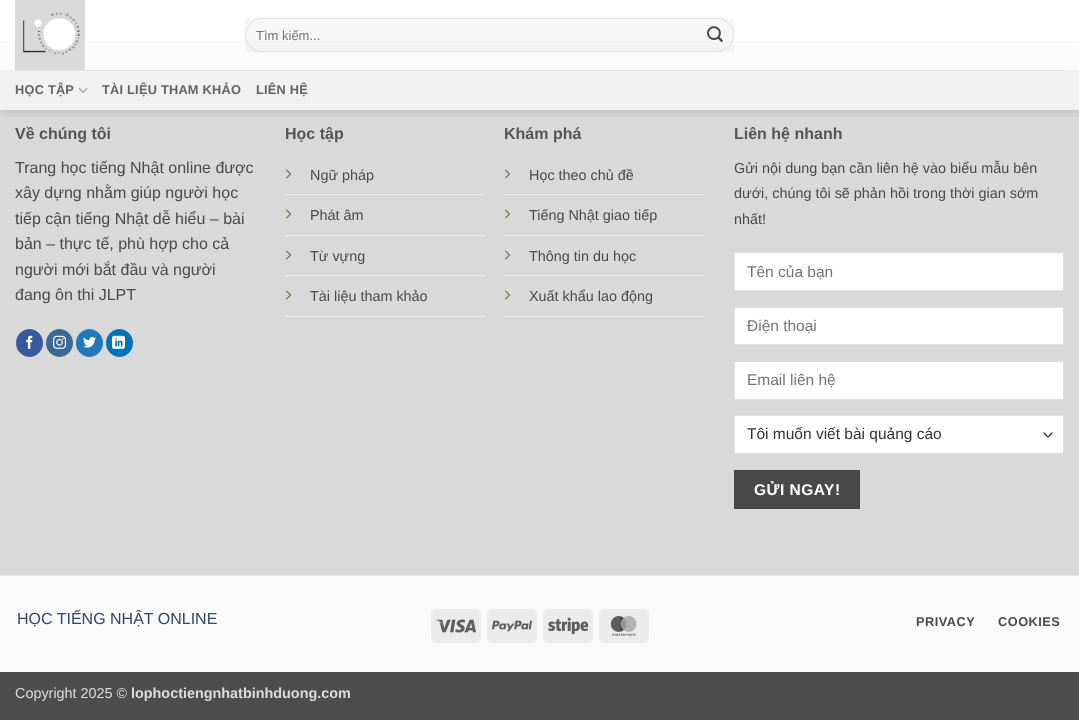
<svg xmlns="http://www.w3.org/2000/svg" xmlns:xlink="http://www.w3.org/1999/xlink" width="1079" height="720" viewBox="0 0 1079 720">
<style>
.cls-1{font:13px Liberation Sans;fill:#757575}
.cls-2{font:bold 12.75px Liberation Sans;letter-spacing:0.25px;fill:#636363}
.cls-3{font:bold 16px Liberation Sans;fill:#555555}
.cls-4{font:16px Liberation Sans;fill:#4a4a4a}
.cls-5{font:14.4px Liberation Sans;fill:#4a4a4a}
.cls-6{font:15.5px Liberation Sans;fill:#757575}
.cls-7{font:15.5px Liberation Sans;fill:#333333}
.cls-8{font:bold 15.5px Liberation Sans;letter-spacing:0.5px;fill:#ffffff}
.cls-9{font:16px Liberation Sans;fill:#334862}
.cls-10{font:bold 12.75px Liberation Sans;letter-spacing:0.5px;fill:#4a4a4a}
.cls-11{font:14.4px Liberation Sans;fill:#dbdbdb}
.cls-12{font:bold 14.4px Liberation Sans;fill:#dbdbdb}
</style>
<defs>
<clipPath id="clip1"><rect x="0" y="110" width="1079" height="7"/></clipPath>
</defs>
<rect width="100%" height="100%" fill="#ffffff"/>
<rect fill="#d9d9d9" x="0" y="110" width="1079" height="465"/>
<rect fill="#fbfbfb" x="0" y="41" width="1079" height="29"/>
<g clip-path="url(#clip1)">
<rect fill="#000000" fill-opacity="0.15" filter="blur(5px)" x="1" y="1" width="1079" height="110"/>
</g>
<image xlink:href="image0.png" x="15" y="0" width="70" height="70"/>
<rect fill="#000000" fill-opacity="0.03" x="245" y="18" width="489" height="34"/>
<rect fill="none" stroke="#000000" stroke-opacity="0.09" x="245.5" y="18.5" width="488" height="33" rx="16.5"/>
<image xlink:href="image1.png" x="707" y="26" width="16" height="16"/>
<rect fill="#f1f1f1" x="0" y="70" width="1079" height="40"/>
<rect fill="#e0e0e0" x="15" y="70" width="1049" height="1"/>
<image xlink:href="image2.png" x="78" y="87" width="10" height="6"/>
<rect fill="#3a589d" stroke="#3a589d" x="16.5" y="329.5" width="26" height="27" rx="13"/>
<image xlink:href="image3.png" x="26" y="335" width="7" height="14"/>
<rect fill="#3b6994" stroke="#3b6994" x="46.5" y="329.5" width="26" height="27" rx="13"/>
<image xlink:href="image4.png" x="53" y="335" width="14" height="14"/>
<rect fill="#2478ba" stroke="#2478ba" x="76.5" y="329.5" width="26" height="27" rx="13"/>
<image xlink:href="image5.png" x="83" y="337" width="13" height="11"/>
<rect fill="#0072b7" stroke="#0072b7" x="106.5" y="329.5" width="26" height="27" rx="13"/>
<image xlink:href="image6.png" x="112" y="335" width="14" height="14"/>
<rect fill="#ececec" x="285" y="194" width="200" height="1"/>
<image xlink:href="image7.png" x="286" y="169" width="6" height="10"/>
<rect fill="#ececec" x="285" y="235" width="200" height="1"/>
<image xlink:href="image7.png" x="286" y="209" width="6" height="10"/>
<rect fill="#ececec" x="285" y="275" width="200" height="1"/>
<image xlink:href="image7.png" x="286" y="250" width="6" height="10"/>
<rect fill="#ececec" x="285" y="316" width="200" height="1"/>
<image xlink:href="image7.png" x="286" y="290" width="6" height="10"/>
<rect fill="#ececec" x="504" y="194" width="201" height="1"/>
<image xlink:href="image7.png" x="505" y="169" width="6" height="10"/>
<rect fill="#ececec" x="504" y="235" width="201" height="1"/>
<image xlink:href="image7.png" x="505" y="209" width="6" height="10"/>
<rect fill="#ececec" x="504" y="275" width="201" height="1"/>
<image xlink:href="image7.png" x="505" y="250" width="6" height="10"/>
<rect fill="#ececec" x="504" y="316" width="201" height="1"/>
<image xlink:href="image7.png" x="505" y="290" width="6" height="10"/>
<rect fill="#ffffff" stroke="#dddddd" x="734.5" y="252.5" width="329" height="38"/>
<rect fill="#ffffff" stroke="#dddddd" x="734.5" y="307.5" width="329" height="37"/>
<rect fill="#ffffff" stroke="#dddddd" x="734.5" y="361.5" width="329" height="38"/>
<rect fill="#ffffff" x="735" y="416" width="328" height="37"/>
<path fill="none" stroke="#333333" stroke-width="1.3" stroke-linecap="round" stroke-linejoin="round" d="M1044 433L1048 437L1052 433"/>
<rect fill="none" stroke="#dddddd" x="734.5" y="415.5" width="329" height="38"/>
<rect fill="#494949" stroke="#454545" x="734.5" y="470.5" width="125" height="38"/>
<rect fill="#e6e6e6" x="0" y="575" width="1079" height="1"/>
<rect fill="#fafafa" x="0" y="576" width="1079" height="96"/>
<rect fill="#ebebeb" x="431" y="609" width="50" height="34" rx="5"/>
<image xlink:href="image8.png" x="436" y="619" width="40" height="14"/>
<rect fill="#ebebeb" x="487" y="609" width="50" height="34" rx="5"/>
<image xlink:href="image9.png" x="492" y="620" width="40" height="12"/>
<rect fill="#ebebeb" x="543" y="609" width="50" height="34" rx="5"/>
<image xlink:href="image10.png" x="548" y="617" width="40" height="18"/>
<rect fill="#ebebeb" x="599" y="609" width="50" height="34" rx="5"/>
<image xlink:href="image11.png" x="610" y="616" width="27" height="20"/>
<rect fill="#4d4d4d" x="0" y="672" width="1079" height="48"/>
<text class="cls-1" x="256" y="40">Tìm kiếm...</text>
<text class="cls-2" x="15" y="94">HỌC TẬP</text>
<text class="cls-2" x="102" y="94">TÀI LIỆU THAM KHẢO</text>
<text class="cls-2" x="256" y="94">LIÊN HỆ</text>
<text class="cls-3" x="15" y="139">Về chúng tôi</text>
<text class="cls-4"><tspan x="15" y="173">Trang học tiếng Nhật online được</tspan><tspan x="15" y="198">xây dựng nhằm giúp người học</tspan><tspan x="15" y="224">tiếp cận tiếng Nhật dễ hiểu – bài</tspan><tspan x="15" y="249">bản – thực tế, phù hợp cho cả</tspan><tspan x="15" y="275">người mới bắt đầu và người</tspan><tspan x="15" y="300">đang ôn thi JLPT</tspan></text>
<text class="cls-3" x="285" y="139">Học tập</text>
<text class="cls-5" x="310" y="180">Ngữ pháp</text>
<text class="cls-5" x="310" y="220">Phát âm</text>
<text class="cls-5" x="310" y="261">Từ vựng</text>
<text class="cls-5" x="310" y="301">Tài liệu tham khảo</text>
<text class="cls-3" x="504" y="139">Khám phá</text>
<text class="cls-5" x="529" y="180">Học theo chủ đề</text>
<text class="cls-5" x="529" y="220">Tiếng Nhật giao tiếp</text>
<text class="cls-5" x="529" y="261">Thông tin du học</text>
<text class="cls-5" x="529" y="301">Xuất khẩu lao động</text>
<text class="cls-3" x="734" y="139">Liên hệ nhanh</text>
<text class="cls-5"><tspan x="734" y="173">Gửi nội dung bạn cần liên hệ vào biểu mẫu bên</tspan><tspan x="734" y="198">dưới, chúng tôi sẽ phản hồi trong thời gian sớm</tspan><tspan x="734" y="224">nhất!</tspan></text>
<text class="cls-6" x="747" y="277">Tên của bạn</text>
<text class="cls-6" x="747" y="331">Điện thoại</text>
<text class="cls-6" x="747" y="385">Email liên hệ</text>
<text class="cls-7" x="747" y="439">Tôi muốn viết bài quảng cáo</text>
<text class="cls-8" x="754" y="495">GỬI NGAY!</text>
<text class="cls-9" x="17" y="624">HỌC TIẾNG NHẬT ONLINE</text>
<text class="cls-10" x="916" y="626">PRIVACY</text>
<text class="cls-10" x="998" y="626">COOKIES</text>
<text class="cls-11" x="15" y="698">Copyright 2025 ©</text>
<text class="cls-12" x="131" y="698">lophoctiengnhatbinhduong.com</text>
</svg>
